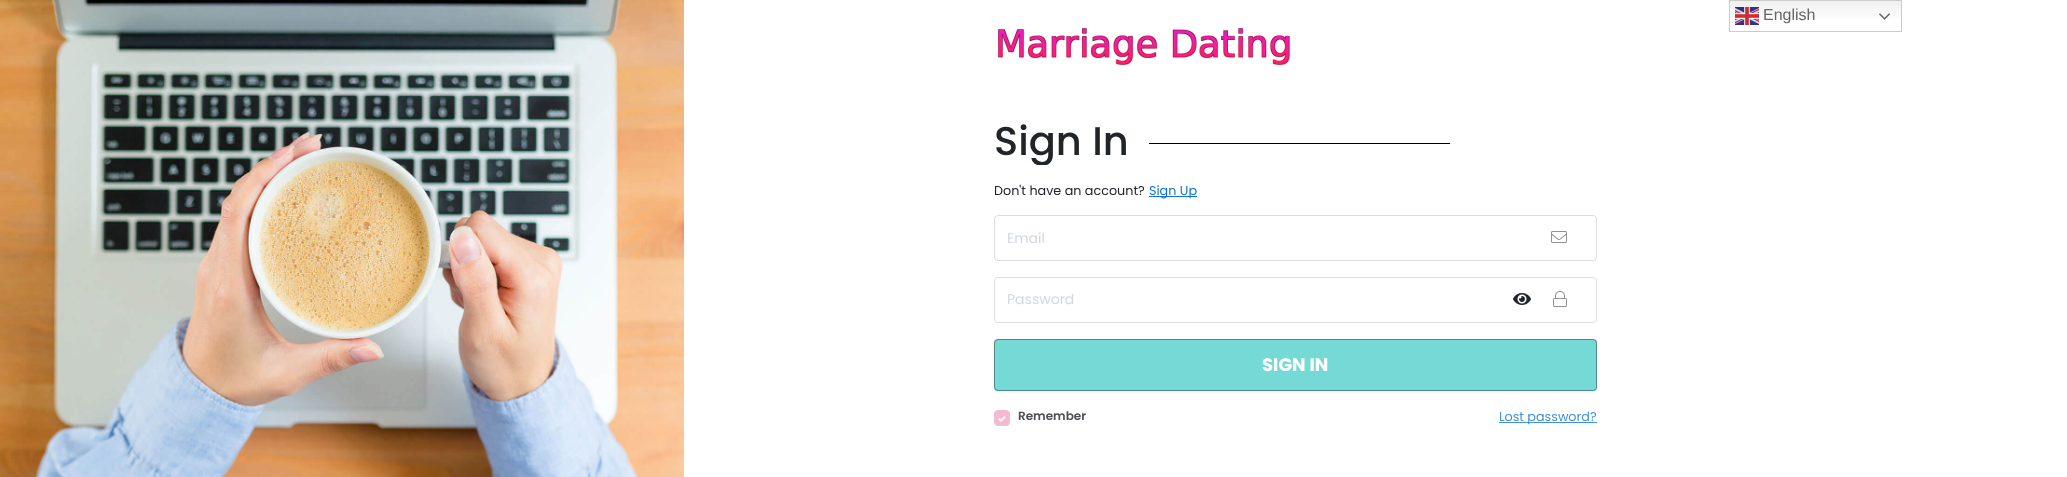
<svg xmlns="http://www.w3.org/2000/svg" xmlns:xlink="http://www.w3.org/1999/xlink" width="2067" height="477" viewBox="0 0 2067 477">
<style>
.cls-1{font:16px Liberation Sans;fill:#666666}
.cls-2{font:500 40px Poppins;fill:#212529}
.cls-3{font:12.75px Poppins;fill:#212529}
.cls-4{font:12.75px Poppins;fill:#1075d3}
.cls-5{font:14px Poppins;fill:#d2d8dd}
.cls-6{font:bold 18px Poppins;fill:#ffffff}
.cls-7{font:600 12px Poppins;fill:#4d5154}
.cls-8{font:12.75px Poppins;fill:#4091dc}
</style>
<defs>
<linearGradient id="g1" gradientUnits="userSpaceOnUse" x1="1816" y1="0" x2="1816" y2="32"><stop offset="0" stop-color="#efefef"/><stop offset="0.7" stop-color="#ffffff"/></linearGradient>
<clipPath id="clip1"><rect x="994" y="117" width="603" height="48"/></clipPath>
</defs>
<rect width="100%" height="100%" fill="#ffffff"/>
<rect fill="url(#g1)" x="1730" y="1" width="171" height="18"/>
<rect fill="none" stroke="#cccccc" x="1729.5" y="0.5" width="172" height="31"/>
<image xlink:href="image0.png" x="1735" y="7" width="24" height="18"/>
<image xlink:href="image1.png" x="1879" y="13" width="11" height="7"/>
<image xlink:href="image2.png" x="0" y="0" width="684" height="477"/>
<image xlink:href="image3.png" x="998" y="28" width="292" height="37"/>
<rect fill="#000000" x="1149" y="143" width="301" height="1"/>
<rect fill="#1075d3" x="1149" y="196" width="48" height="1"/>
<rect fill="none" stroke="#dddddd" x="994.5" y="215.5" width="602" height="45" rx="3.5"/>
<image xlink:href="image4.png" x="1551" y="231" width="16" height="12"/>
<rect fill="none" stroke="#dddddd" x="994.5" y="277.5" width="602" height="45" rx="3.5"/>
<image xlink:href="image5.png" x="1513" y="293" width="18" height="12"/>
<image xlink:href="image6.png" x="1553" y="291" width="14" height="16"/>
<rect fill="#000000" fill-opacity="0.1" filter="blur(1px)" x="994" y="340" width="603" height="52" rx="4"/>
<rect fill="#75dad6" x="994" y="339" width="603" height="52" rx="4"/>
<rect fill="none" stroke="#363636" stroke-opacity="0.49" x="994.5" y="339.5" width="602" height="51" rx="3.5"/>
<rect fill="#f3bad2" stroke="#f3bad2" x="994.5" y="410.5" width="15" height="15" rx="3.5"/>
<image xlink:href="image7.png" x="998" y="416" width="8" height="6"/>
<rect fill="#4091dc" x="1499" y="422" width="98" height="1"/>
<text class="cls-1" x="1763" y="20">English</text>
<g clip-path="url(#clip1)">
<text class="cls-2" x="994" y="155">Sign In</text>
</g>
<text class="cls-3" x="994" y="195">Don't have an account?</text>
<text class="cls-4" x="1149" y="195">Sign Up</text>
<text class="cls-5" x="1007" y="243">Email</text>
<text class="cls-5" x="1007" y="304">Password</text>
<text class="cls-6" x="1262" y="371">SIGN IN</text>
<text class="cls-7" x="1018" y="420">Remember</text>
<text class="cls-8" x="1499" y="421">Lost password?</text>
</svg>
